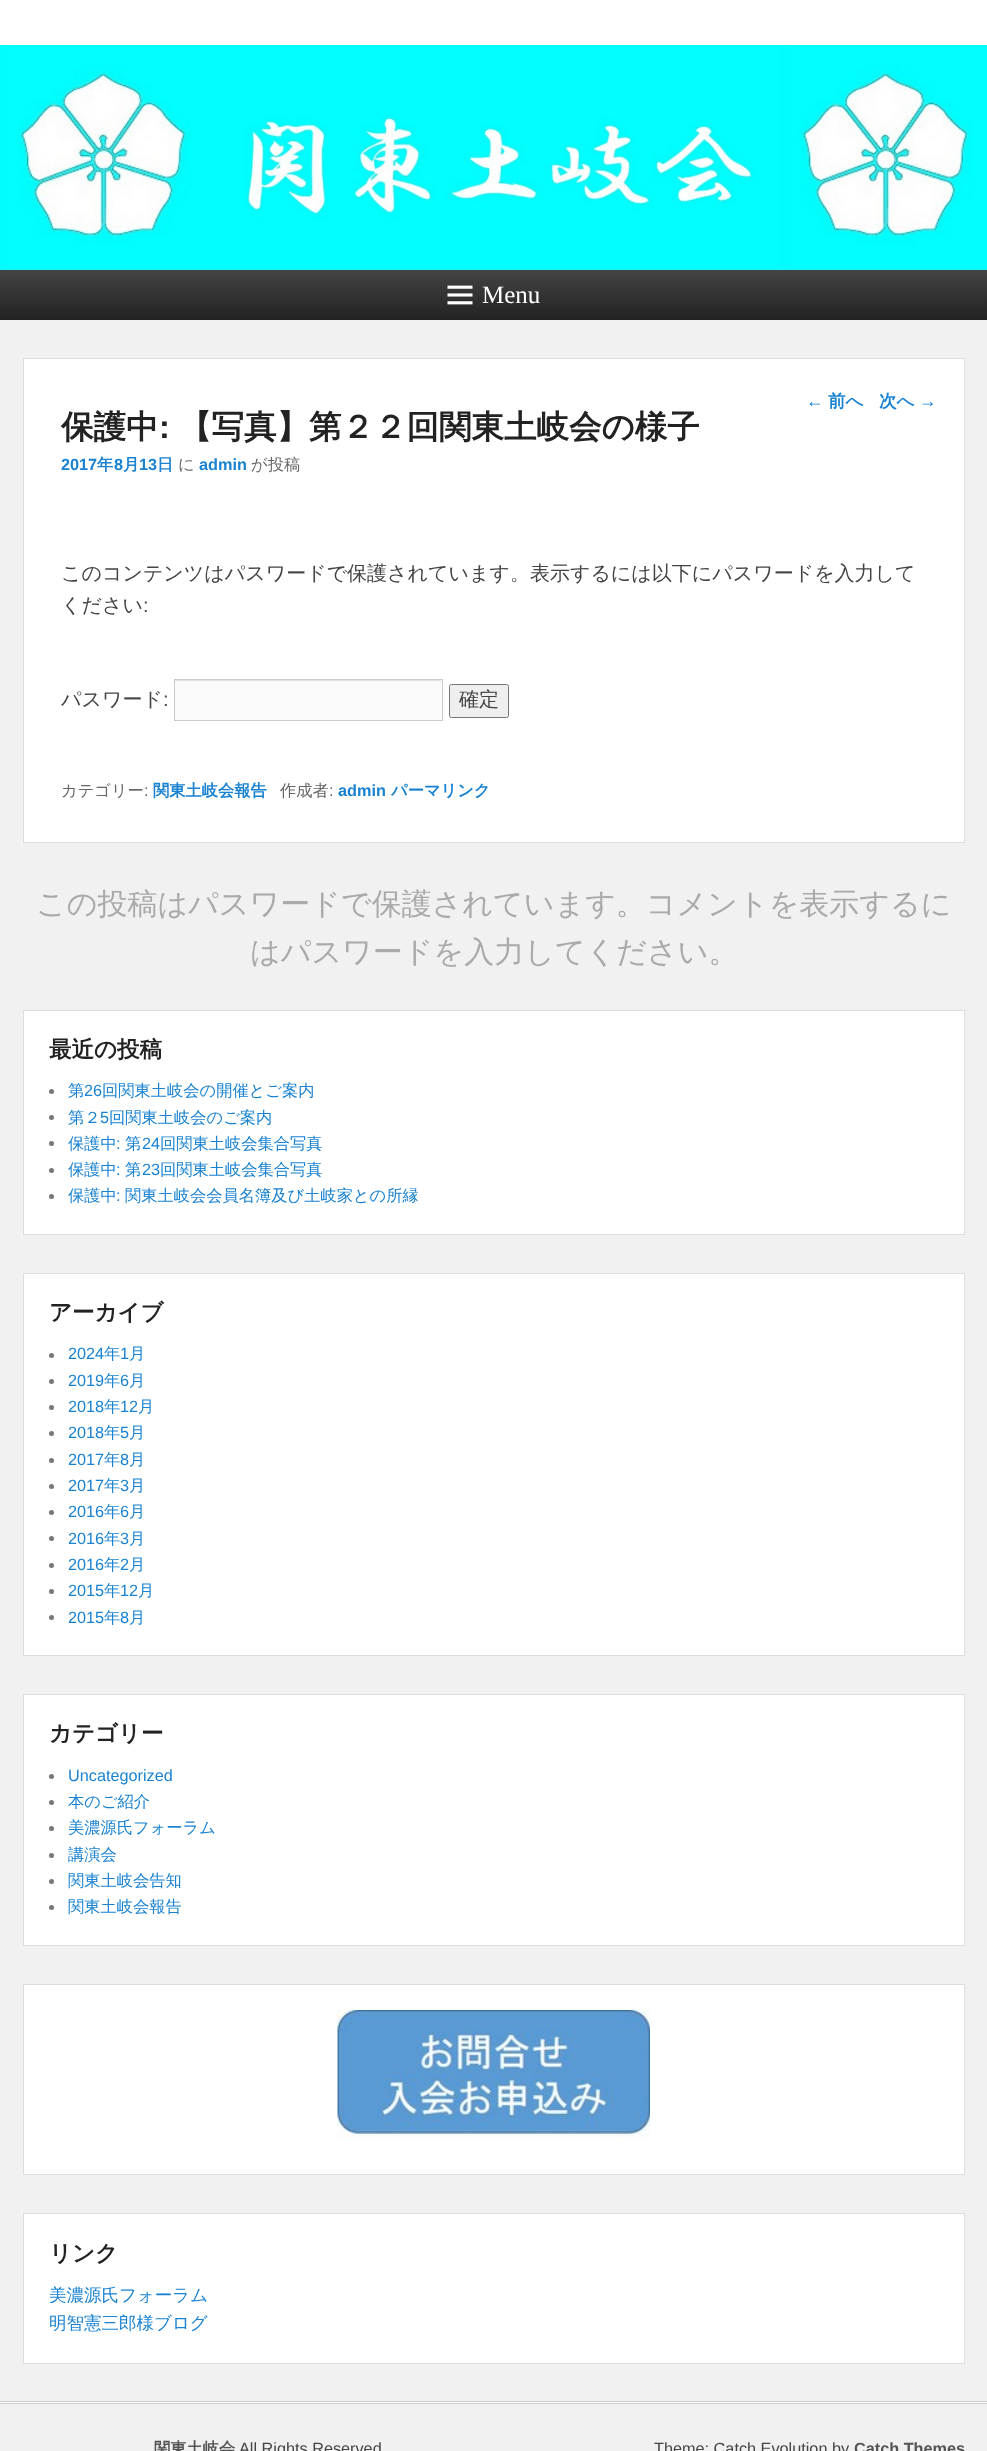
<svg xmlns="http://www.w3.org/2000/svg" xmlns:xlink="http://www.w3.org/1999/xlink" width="987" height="2451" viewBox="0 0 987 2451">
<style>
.cls-1{font:25px Liberation Serif;fill:#ffffff}
.cls-2{font:17.5px Liberation Sans;fill:#1982d1}
.cls-3{font:bold 17.5px WenQuanYi Zen Hei;fill:#1982d1}
.cls-4{font:bold 32.5px WenQuanYi Zen Hei;fill:#222222}
.cls-5{font:bold 32.5px Liberation Sans;fill:#222222}
.cls-6{font:bold 16.25px Liberation Sans;fill:#1982d1}
.cls-7{font:bold 16.25px WenQuanYi Zen Hei;fill:#1982d1}
.cls-8{font:500 16.25px WenQuanYi Zen Hei;fill:#666666}
.cls-9{font:500 20px WenQuanYi Zen Hei;fill:#444444}
.cls-10{font:20px Liberation Sans;fill:#444444}
.cls-11{font:16.25px Liberation Sans;fill:#666666}
.cls-12{font:500 30px WenQuanYi Zen Hei;fill:#aaaaaa}
.cls-13{font:bold 22.5px WenQuanYi Zen Hei;fill:#222222}
.cls-14{font:500 16.25px WenQuanYi Zen Hei;fill:#1982d1}
.cls-15{font:16.25px Liberation Sans;fill:#1982d1}
.cls-16{font:500 17.5px WenQuanYi Zen Hei;fill:#1982d1}
.cls-17{font:bold 16.25px WenQuanYi Zen Hei;fill:#555555}
.cls-18{font:16.25px Liberation Sans;fill:#444444}
.cls-19{font:bold 16.25px Liberation Sans;fill:#555555}
</style>
<defs>
<linearGradient id="g1" gradientUnits="userSpaceOnUse" x1="494" y1="270" x2="494" y2="320"><stop offset="0" stop-color="#444444"/><stop offset="1" stop-color="#222222"/></linearGradient>
</defs>
<rect width="100%" height="100%" fill="#f1f1f1"/>
<rect fill="#ffffff" x="0" y="0" width="987" height="45"/>
<image xlink:href="image0.png" x="0" y="45" width="987" height="225"/>
<rect fill="url(#g1)" x="0" y="270" width="987" height="50"/>
<image xlink:href="image1.png" x="447" y="285" width="26" height="20"/>
<rect fill="#ffffff" stroke="#dddddd" x="23.5" y="358.5" width="941" height="484"/>
<rect fill="#fafafa" x="175" y="680" width="267" height="40"/>
<rect fill="#e1e1e1" x="175" y="680" width="266" height="1"/>
<rect fill="none" stroke="#cccccc" x="174.5" y="679.5" width="268" height="41"/>
<rect fill="#efefef" stroke="#767676" x="449.5" y="684.5" width="59" height="33" rx="2"/>
<rect fill="#ffffff" stroke="#dddddd" x="23.5" y="1010.5" width="941" height="224"/>
<circle fill="#777777" cx="51.5" cy="1091.5" r="2.5"/>
<circle fill="#777777" cx="51.5" cy="1117.5" r="2.5"/>
<circle fill="#777777" cx="51.5" cy="1143.5" r="2.5"/>
<circle fill="#777777" cx="51.5" cy="1170.5" r="2.5"/>
<circle fill="#777777" cx="51.5" cy="1196.5" r="2.5"/>
<rect fill="#ffffff" stroke="#dddddd" x="23.5" y="1273.5" width="941" height="382"/>
<circle fill="#777777" cx="51.5" cy="1355.5" r="2.5"/>
<circle fill="#777777" cx="51.5" cy="1381.5" r="2.5"/>
<circle fill="#777777" cx="51.5" cy="1407.5" r="2.5"/>
<circle fill="#777777" cx="51.5" cy="1433.5" r="2.5"/>
<circle fill="#777777" cx="51.5" cy="1460.5" r="2.5"/>
<circle fill="#777777" cx="51.5" cy="1486.5" r="2.5"/>
<circle fill="#777777" cx="51.5" cy="1512.5" r="2.5"/>
<circle fill="#777777" cx="51.5" cy="1538.5" r="2.5"/>
<circle fill="#777777" cx="51.5" cy="1565.5" r="2.5"/>
<circle fill="#777777" cx="51.5" cy="1591.5" r="2.5"/>
<circle fill="#777777" cx="51.5" cy="1617.5" r="2.5"/>
<rect fill="#ffffff" stroke="#dddddd" x="23.5" y="1694.5" width="941" height="251"/>
<circle fill="#777777" cx="51.5" cy="1776.5" r="2.5"/>
<circle fill="#777777" cx="51.5" cy="1802.5" r="2.5"/>
<circle fill="#777777" cx="51.5" cy="1828.5" r="2.5"/>
<circle fill="#777777" cx="51.5" cy="1855.5" r="2.5"/>
<circle fill="#777777" cx="51.5" cy="1881.5" r="2.5"/>
<circle fill="#777777" cx="51.5" cy="1907.5" r="2.5"/>
<rect fill="#ffffff" stroke="#dddddd" x="23.5" y="1984.5" width="941" height="190"/>
<image xlink:href="image2.png" x="337" y="2010" width="313" height="131"/>
<rect fill="#ffffff" stroke="#dddddd" x="23.5" y="2213.5" width="941" height="150"/>
<rect fill="#ffffff" x="0" y="2402" width="987" height="1"/>
<rect fill="#cccccc" x="0" y="2401" width="987" height="1"/>
<rect fill="#cccccc" x="0" y="2403" width="987" height="1"/>
<text class="cls-1" x="482" y="303">Menu</text>
<text class="cls-2" x="806" y="407">←</text>
<text class="cls-3" x="828" y="407">前へ</text>
<text class="cls-3" x="879" y="407">次へ</text>
<text class="cls-2" x="919" y="407">→</text>
<text class="cls-4" x="61" y="438">保護中</text>
<text class="cls-5" x="159" y="438">:</text>
<text class="cls-4" x="179" y="438">【写真】第２２回関東土岐会の様子</text>
<text class="cls-6" x="61" y="470">2017</text>
<text class="cls-7" x="97" y="470">年</text>
<text class="cls-6" x="114" y="470">8</text>
<text class="cls-7" x="123" y="470">月</text>
<text class="cls-6" x="139" y="470">13</text>
<text class="cls-7" x="157" y="470">日</text>
<text class="cls-8" x="178" y="470">に</text>
<text class="cls-6" x="199" y="470">admin</text>
<text class="cls-8" x="251" y="470">が投稿</text>
<text class="cls-9"><tspan x="61" y="580">このコンテンツはパスワードで保護されています。表示するには以下にパスワードを入力して</tspan><tspan x="61" y="612">ください</tspan></text>
<text class="cls-10" x="143" y="612">:</text>
<text class="cls-9" x="61" y="706">パスワード</text>
<text class="cls-10" x="163" y="706">:</text>
<text class="cls-9" x="459" y="706">確定</text>
<text class="cls-8" x="61" y="796">カテゴリー</text>
<text class="cls-11" x="144" y="796">:</text>
<text class="cls-7" x="153" y="796">関東土岐会報告</text>
<text class="cls-8" x="280" y="796">作成者</text>
<text class="cls-11" x="329" y="796">:</text>
<text class="cls-6" x="338" y="796">admin</text>
<text class="cls-7" x="391" y="796">パーマリンク</text>
<text class="cls-12" x="36" y="914">この投稿はパスワードで保護されています。コメントを表示するに</text>
<text class="cls-12" x="250" y="962">はパスワードを入力してください。</text>
<text class="cls-13" x="49" y="1057">最近の投稿</text>
<text class="cls-14" x="68" y="1096">第</text>
<text class="cls-15" x="84" y="1096">26</text>
<text class="cls-14" x="102" y="1096">回関東土岐会の開催とご案内</text>
<text class="cls-14" x="68" y="1123">第２</text>
<text class="cls-15" x="100" y="1123">5</text>
<text class="cls-14" x="109" y="1123">回関東土岐会のご案内</text>
<text class="cls-14" x="68" y="1149">保護中</text>
<text class="cls-15" x="116" y="1149">:</text>
<text class="cls-14" x="125" y="1149">第</text>
<text class="cls-15" x="142" y="1149">24</text>
<text class="cls-14" x="160" y="1149">回関東土岐会集合写真</text>
<text class="cls-14" x="68" y="1175">保護中</text>
<text class="cls-15" x="116" y="1175">:</text>
<text class="cls-14" x="125" y="1175">第</text>
<text class="cls-15" x="142" y="1175">23</text>
<text class="cls-14" x="160" y="1175">回関東土岐会集合写真</text>
<text class="cls-14" x="68" y="1201">保護中</text>
<text class="cls-15" x="116" y="1201">:</text>
<text class="cls-14" x="125" y="1201">関東土岐会会員名簿及び土岐家との所縁</text>
<text class="cls-13" x="49" y="1320">アーカイブ</text>
<text class="cls-15" x="68" y="1359">2024</text>
<text class="cls-14" x="104" y="1359">年</text>
<text class="cls-15" x="120" y="1359">1</text>
<text class="cls-14" x="129" y="1359">月</text>
<text class="cls-15" x="68" y="1386">2019</text>
<text class="cls-14" x="104" y="1386">年</text>
<text class="cls-15" x="120" y="1386">6</text>
<text class="cls-14" x="129" y="1386">月</text>
<text class="cls-15" x="68" y="1412">2018</text>
<text class="cls-14" x="104" y="1412">年</text>
<text class="cls-15" x="120" y="1412">12</text>
<text class="cls-14" x="138" y="1412">月</text>
<text class="cls-15" x="68" y="1438">2018</text>
<text class="cls-14" x="104" y="1438">年</text>
<text class="cls-15" x="120" y="1438">5</text>
<text class="cls-14" x="129" y="1438">月</text>
<text class="cls-15" x="68" y="1465">2017</text>
<text class="cls-14" x="104" y="1465">年</text>
<text class="cls-15" x="120" y="1465">8</text>
<text class="cls-14" x="129" y="1465">月</text>
<text class="cls-15" x="68" y="1491">2017</text>
<text class="cls-14" x="104" y="1491">年</text>
<text class="cls-15" x="120" y="1491">3</text>
<text class="cls-14" x="129" y="1491">月</text>
<text class="cls-15" x="68" y="1517">2016</text>
<text class="cls-14" x="104" y="1517">年</text>
<text class="cls-15" x="120" y="1517">6</text>
<text class="cls-14" x="129" y="1517">月</text>
<text class="cls-15" x="68" y="1544">2016</text>
<text class="cls-14" x="104" y="1544">年</text>
<text class="cls-15" x="120" y="1544">3</text>
<text class="cls-14" x="129" y="1544">月</text>
<text class="cls-15" x="68" y="1570">2016</text>
<text class="cls-14" x="104" y="1570">年</text>
<text class="cls-15" x="120" y="1570">2</text>
<text class="cls-14" x="129" y="1570">月</text>
<text class="cls-15" x="68" y="1596">2015</text>
<text class="cls-14" x="104" y="1596">年</text>
<text class="cls-15" x="120" y="1596">12</text>
<text class="cls-14" x="138" y="1596">月</text>
<text class="cls-15" x="68" y="1623">2015</text>
<text class="cls-14" x="104" y="1623">年</text>
<text class="cls-15" x="120" y="1623">8</text>
<text class="cls-14" x="129" y="1623">月</text>
<text class="cls-13" x="49" y="1741">カテゴリー</text>
<text class="cls-15" x="68" y="1781">Uncategorized</text>
<text class="cls-14"><tspan x="68" y="1807">本のご紹介</tspan><tspan x="68" y="1833">美濃源氏フォーラム</tspan><tspan x="68" y="1860">講演会</tspan><tspan x="68" y="1886">関東土岐会告知</tspan><tspan x="68" y="1912">関東土岐会報告</tspan></text>
<text class="cls-13" x="49" y="2261">リンク</text>
<text class="cls-16"><tspan x="49" y="2301">美濃源氏フォーラム</tspan><tspan x="49" y="2329">明智憲三郎様ブログ</tspan></text>
<text class="cls-17" x="154" y="2454">関東土岐会</text>
<text class="cls-18" x="239" y="2454">All Rights Reserved</text>
<text class="cls-18" x="654" y="2454">Theme: Catch Evolution by</text>
<text class="cls-19" x="854" y="2454">Catch Themes</text>
</svg>
